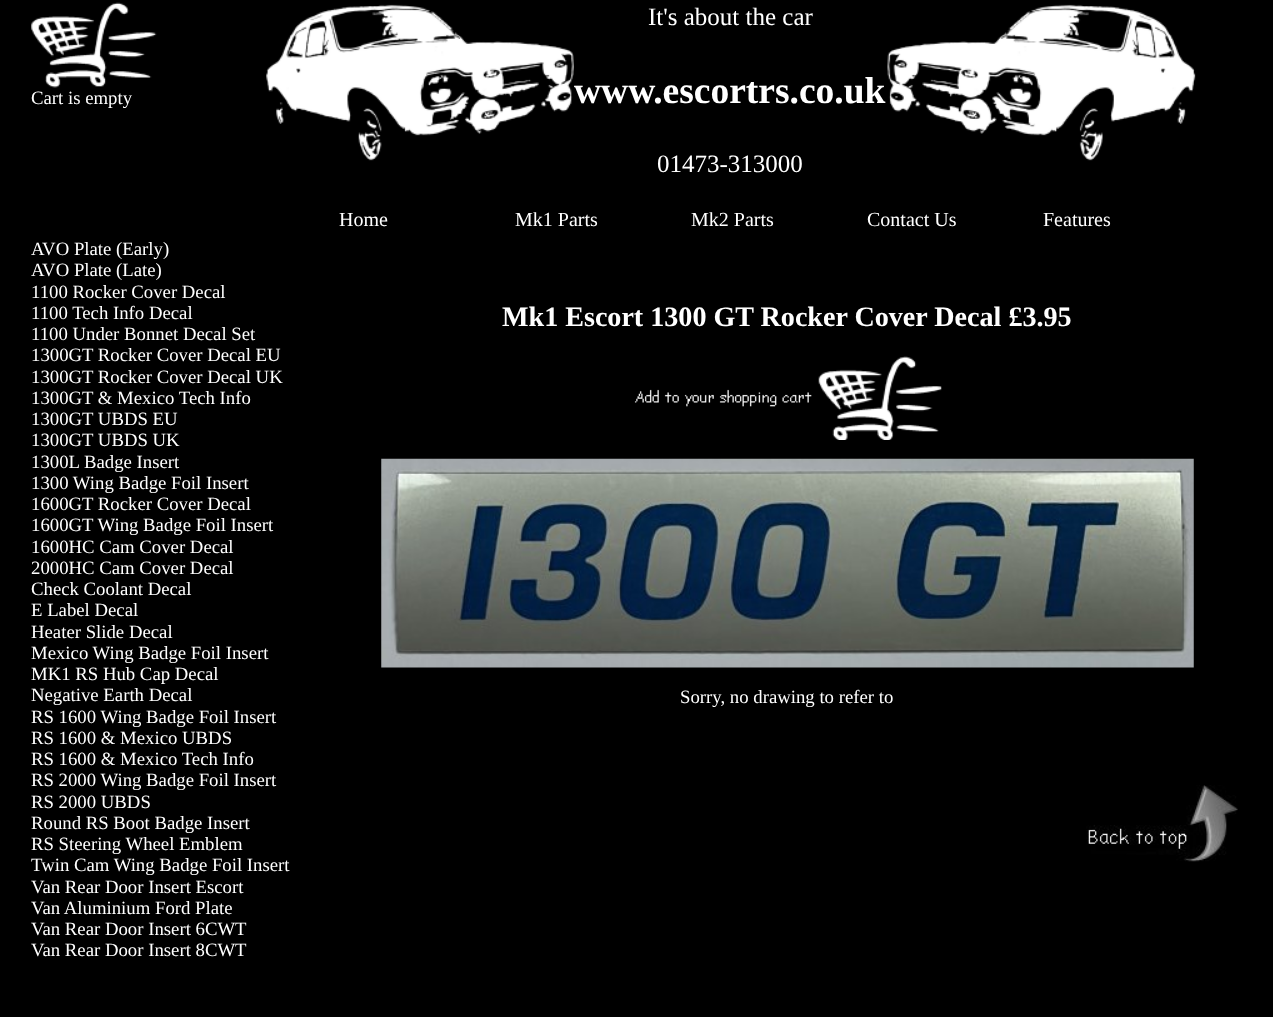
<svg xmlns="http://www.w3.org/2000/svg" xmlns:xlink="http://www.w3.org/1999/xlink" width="1273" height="1017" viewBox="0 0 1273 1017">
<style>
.cls-1{font:18.75px Liberation Serif;fill:#ffffff}
.cls-2{font:25px Liberation Serif;fill:#ffffff}
.cls-3{font:bold 37.5px Liberation Serif;fill:#ffffff}
.cls-4{font:20px Liberation Serif;fill:#ffffff}
.cls-5{font:bold 28.1px Liberation Serif;fill:#ffffff}
</style>
<rect width="100%" height="100%" fill="#000000"/>
<image xlink:href="image0.png" x="31" y="2" width="126" height="86"/>
<image xlink:href="image1.png" x="266" y="4" width="308" height="157"/>
<image xlink:href="image2.png" x="887" y="4" width="309" height="157"/>
<image xlink:href="image3.png" x="634" y="356" width="308" height="84"/>
<image xlink:href="image4.png" x="381" y="458" width="813" height="210"/>
<image xlink:href="image5.png" x="1086" y="785" width="152" height="77"/>
<text class="cls-1" x="31" y="104">Cart is empty</text>
<text class="cls-2" x="648" y="25">It's about the car</text>
<text class="cls-3" x="574" y="103">www.escortrs.co.uk</text>
<text class="cls-2" x="657" y="172">01473-313000</text>
<text class="cls-4" x="339" y="226">Home</text>
<text class="cls-4" x="515" y="226">Mk1 Parts</text>
<text class="cls-4" x="691" y="226">Mk2 Parts</text>
<text class="cls-4" x="867" y="226">Contact Us</text>
<text class="cls-4" x="1043" y="226">Features</text>
<text class="cls-1"><tspan x="31" y="255">AVO Plate (Early)</tspan><tspan x="31" y="276">AVO Plate (Late)</tspan><tspan x="31" y="298">1100 Rocker Cover Decal</tspan><tspan x="31" y="319">1100 Tech Info Decal</tspan><tspan x="31" y="340">1100 Under Bonnet Decal Set</tspan><tspan x="31" y="361">1300GT Rocker Cover Decal EU</tspan><tspan x="31" y="383">1300GT Rocker Cover Decal UK</tspan><tspan x="31" y="404">1300GT &amp; Mexico Tech Info</tspan><tspan x="31" y="425">1300GT UBDS EU</tspan><tspan x="31" y="446">1300GT UBDS UK</tspan><tspan x="31" y="468">1300L Badge Insert</tspan><tspan x="31" y="489">1300 Wing Badge Foil Insert</tspan><tspan x="31" y="510">1600GT Rocker Cover Decal</tspan><tspan x="31" y="531">1600GT Wing Badge Foil Insert</tspan><tspan x="31" y="553">1600HC Cam Cover Decal</tspan><tspan x="31" y="574">2000HC Cam Cover Decal</tspan><tspan x="31" y="595">Check Coolant Decal</tspan><tspan x="31" y="616">E Label Decal</tspan><tspan x="31" y="638">Heater Slide Decal</tspan><tspan x="31" y="659">Mexico Wing Badge Foil Insert</tspan><tspan x="31" y="680">MK1 RS Hub Cap Decal</tspan><tspan x="31" y="701">Negative Earth Decal</tspan><tspan x="31" y="723">RS 1600 Wing Badge Foil Insert</tspan><tspan x="31" y="744">RS 1600 &amp; Mexico UBDS</tspan><tspan x="31" y="765">RS 1600 &amp; Mexico Tech Info</tspan><tspan x="31" y="786">RS 2000 Wing Badge Foil Insert</tspan><tspan x="31" y="808">RS 2000 UBDS</tspan><tspan x="31" y="829">Round RS Boot Badge Insert</tspan><tspan x="31" y="850">RS Steering Wheel Emblem</tspan><tspan x="31" y="871">Twin Cam Wing Badge Foil Insert</tspan><tspan x="31" y="893">Van Rear Door Insert Escort</tspan><tspan x="31" y="914">Van Aluminium Ford Plate</tspan><tspan x="31" y="935">Van Rear Door Insert 6CWT</tspan><tspan x="31" y="956">Van Rear Door Insert 8CWT</tspan></text>
<text class="cls-5" x="502" y="326">Mk1 Escort 1300 GT Rocker Cover Decal £3.95</text>
<text class="cls-1" x="680" y="703">Sorry, no drawing to refer to</text>
</svg>
